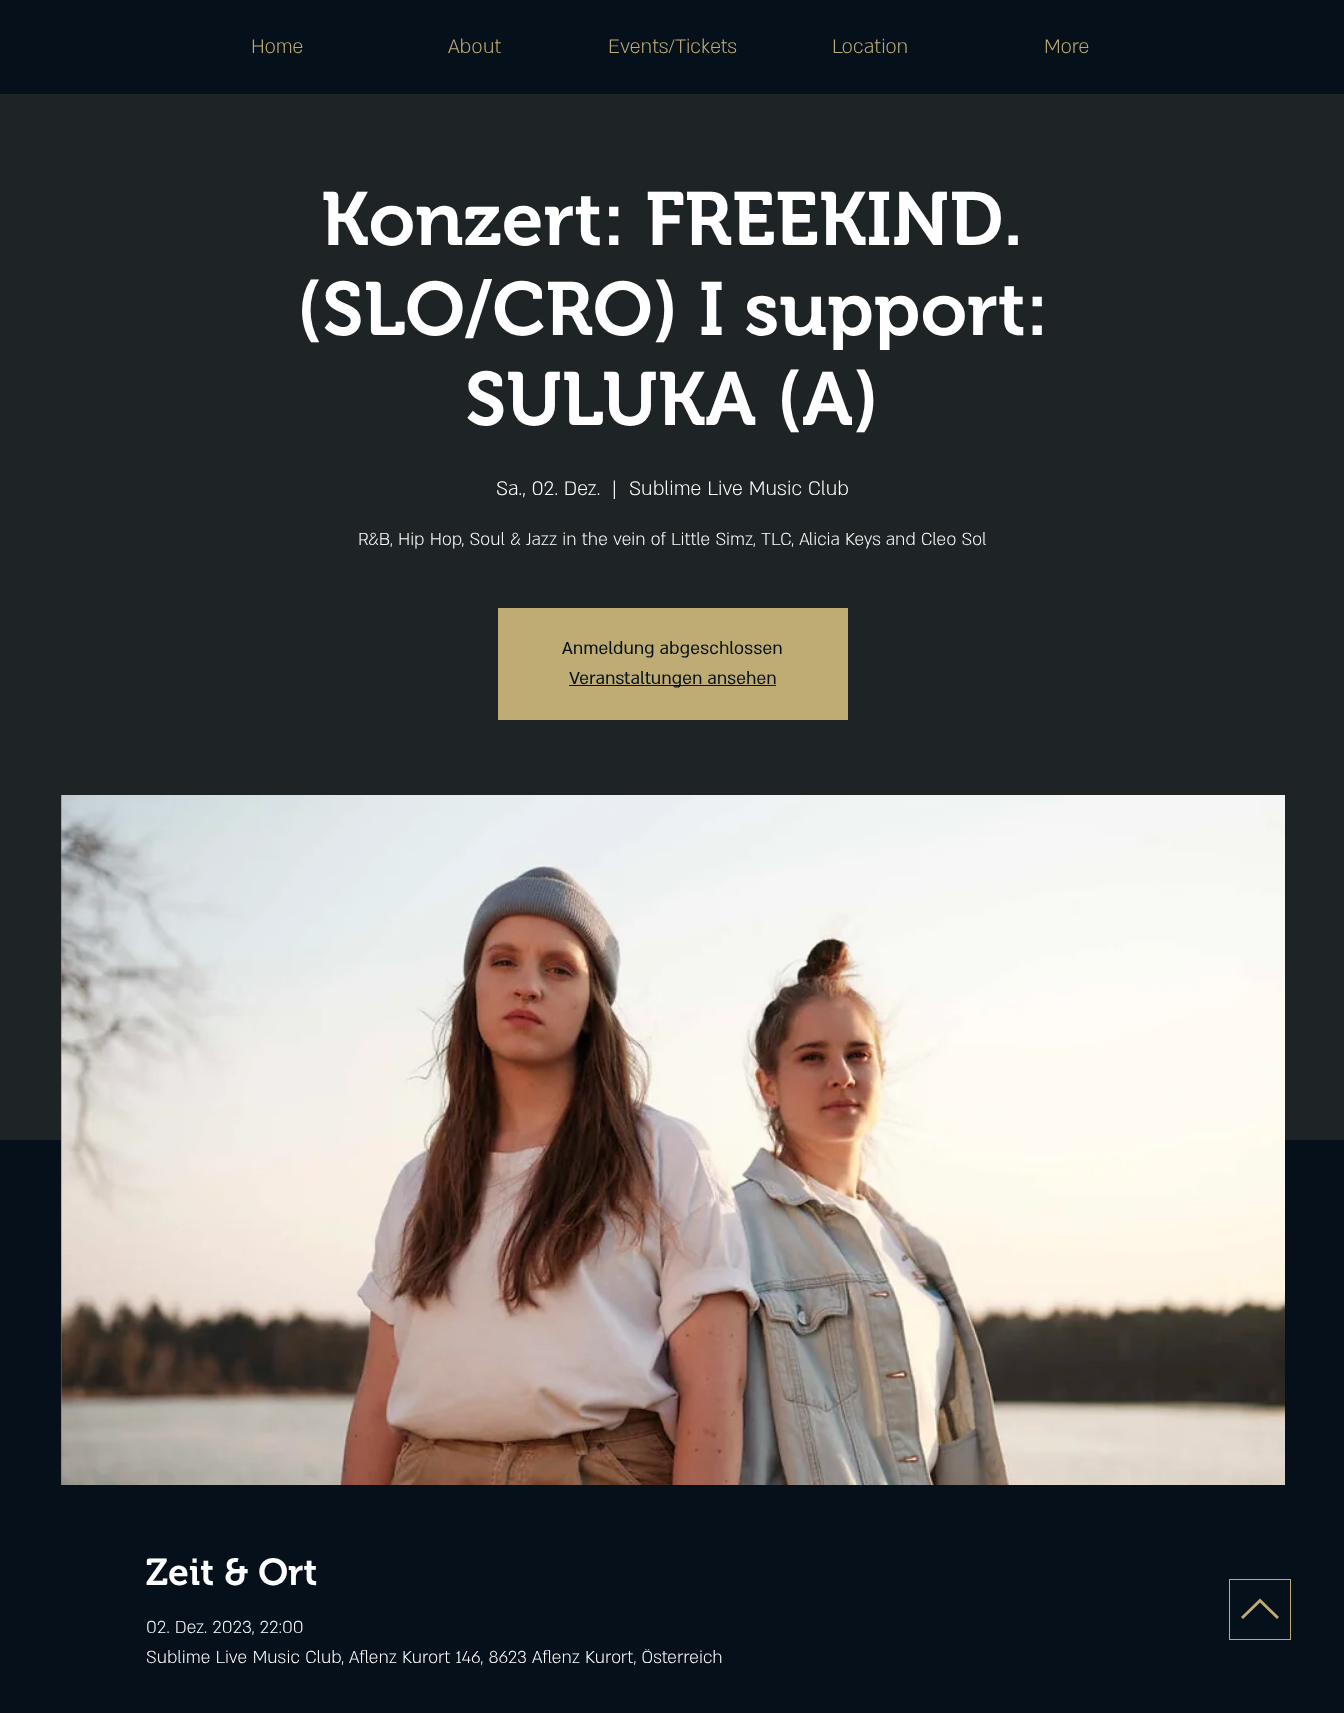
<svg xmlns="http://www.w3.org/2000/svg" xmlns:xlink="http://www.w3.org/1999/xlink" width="1344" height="1713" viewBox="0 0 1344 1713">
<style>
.cls-1{font:300 22.5px 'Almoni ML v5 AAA';fill:#beac74}
.cls-2{font:600 75px 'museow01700';fill:#ffffff}
.cls-3{font:300 22.5px 'Almoni ML v5 AAA';fill:#ffffff}
.cls-4{font:300 20px 'Almoni ML v5 AAA';fill:#ffffff}
.cls-5{font:20px 'Almoni ML v5 AAA';fill:#06101b}
.cls-6{font:600 37.5px 'museow01700';fill:#ffffff}
</style>
<rect width="100%" height="100%" fill="#06101b"/>
<rect fill="#1e2426" x="0" y="94" width="1344" height="1046"/>
<rect fill="#beac74" x="498" y="608" width="350" height="112"/>
<rect fill="#06101b" x="569" y="685" width="207" height="1"/>
<rect fill="#7f734e" x="61" y="795" width="1" height="690"/>
<image xlink:href="image0.png" x="61" y="795" width="1224" height="690"/>
<rect fill="none" stroke="#beac74" x="1229.5" y="1579.5" width="61" height="60"/>
<path fill="#beac74" d="M1241 1617L1243 1619L1260 1602.5L1277 1619L1279 1617L1260 1598.5Z"/>
<text class="cls-1" x="251" y="53">Home</text>
<text class="cls-1" x="448" y="53">About</text>
<text class="cls-1" x="608" y="53">Events/Tickets</text>
<text class="cls-1" x="832" y="53">Location</text>
<text class="cls-1" x="1044" y="53">More</text>
<text class="cls-2" x="321" y="245">Konzert: FREEKIND.</text>
<text class="cls-2" x="296" y="335">(SLO/CRO) I support:</text>
<text class="cls-2" x="465" y="425">SULUKA (A)</text>
<text class="cls-3" x="496" y="495">Sa., 02. Dez.</text>
<text class="cls-3" x="612" y="495">|</text>
<text class="cls-3" x="629" y="495">Sublime Live Music Club</text>
<text class="cls-4" x="358" y="545">R&amp;B, Hip Hop, Soul &amp; Jazz in the vein of Little Simz, TLC, Alicia Keys and Cleo Sol</text>
<text class="cls-5" x="562" y="654">Anmeldung abgeschlossen</text>
<text class="cls-5" x="569" y="684">Veranstaltungen ansehen</text>
<text class="cls-6" x="146" y="1585">Zeit &amp; Ort</text>
<text class="cls-4"><tspan x="146" y="1633">02. Dez. 2023, 22:00</tspan><tspan x="146" y="1663">Sublime Live Music Club, Aflenz Kurort 146, 8623 Aflenz Kurort, Österreich</tspan></text>
</svg>
